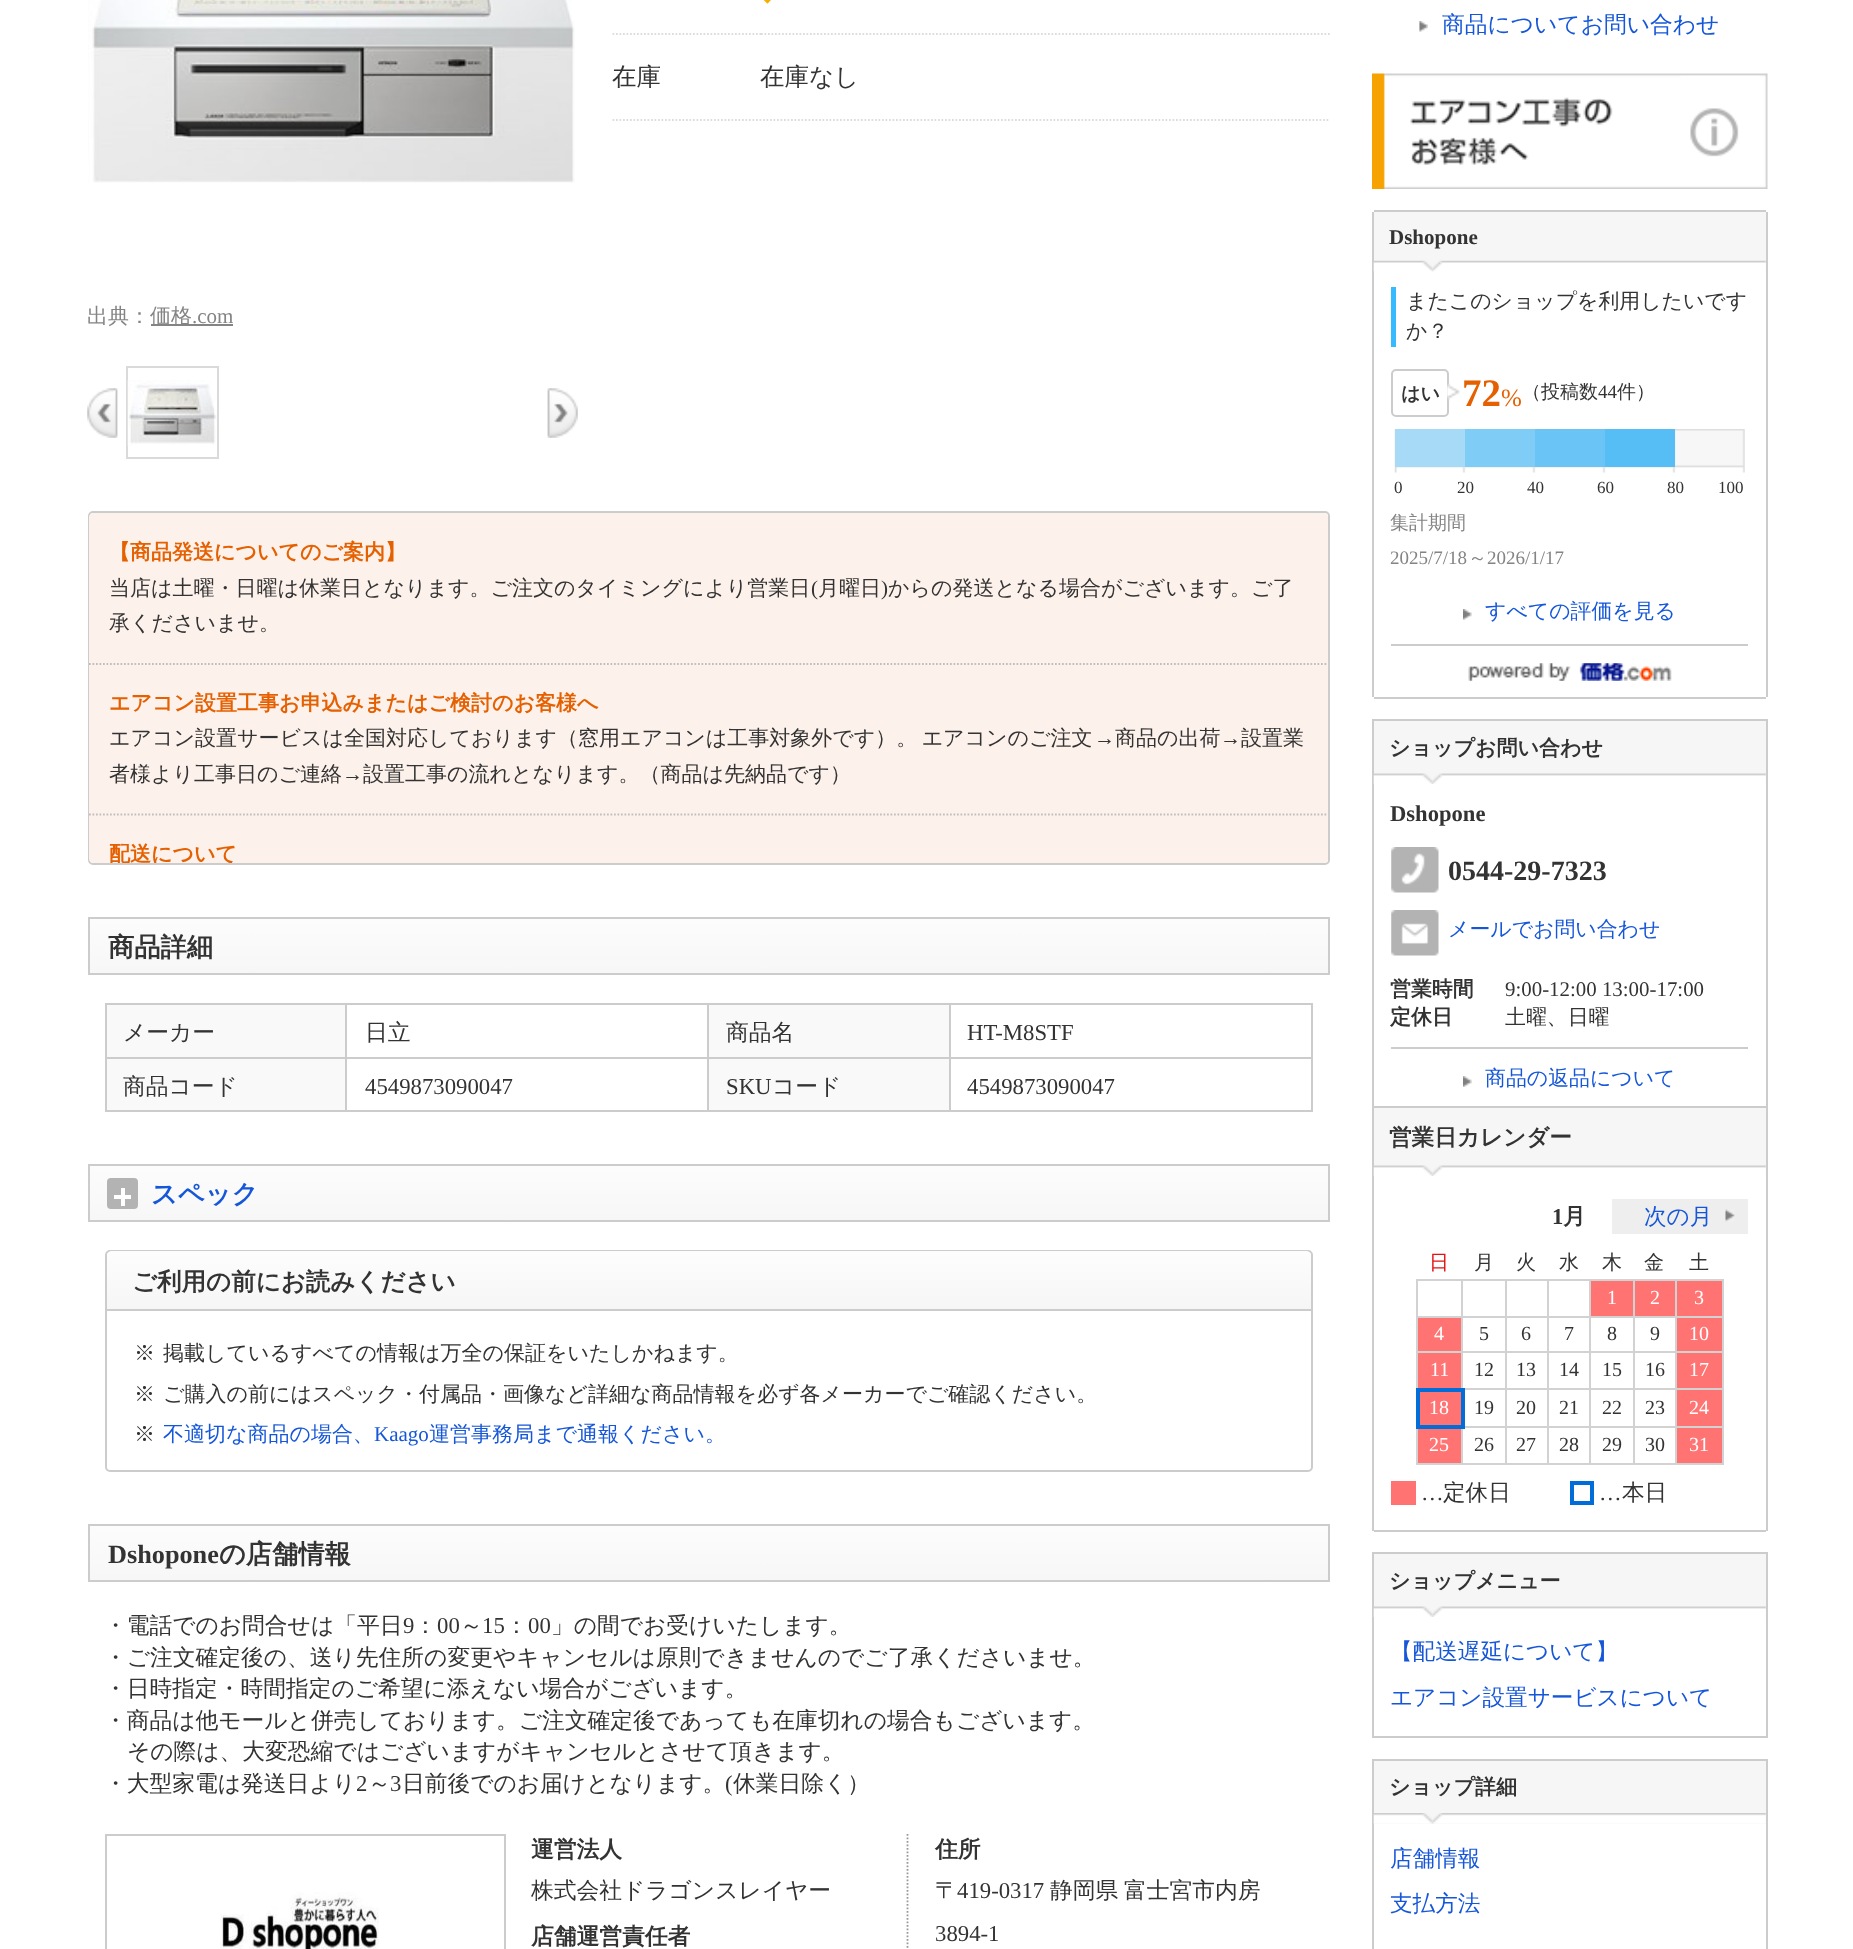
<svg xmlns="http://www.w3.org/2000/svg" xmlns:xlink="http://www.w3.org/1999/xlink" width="1853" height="1949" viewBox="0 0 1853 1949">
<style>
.cls-1{font:500 24.5px WenQuanYi Zen Hei;fill:#333333}
.cls-2{font:500 21px WenQuanYi Zen Hei;fill:#848484}
.cls-3{font:21px Liberation Serif;fill:#848484}
.cls-4{font:bold 21px WenQuanYi Zen Hei;fill:#e56000}
.cls-5{font:500 21px WenQuanYi Zen Hei;fill:#333333}
.cls-6{font:21px Liberation Serif;fill:#333333}
.cls-7{font:bold 26.25px WenQuanYi Zen Hei;fill:#333333}
.cls-8{font:500 22.75px WenQuanYi Zen Hei;fill:#333333}
.cls-9{font:22.75px Liberation Serif;fill:#333333}
.cls-10{font:bold 26.25px WenQuanYi Zen Hei;fill:#1657d9}
.cls-11{font:bold 24.5px WenQuanYi Zen Hei;fill:#333333}
.cls-12{font:500 21px WenQuanYi Zen Hei;fill:#1657d9}
.cls-13{font:21px Liberation Serif;fill:#1657d9}
.cls-14{font:bold 26.25px Liberation Serif;fill:#333333}
.cls-15{font:bold 22.75px WenQuanYi Zen Hei;fill:#333333}
.cls-16{font:500 22.75px WenQuanYi Zen Hei;fill:#1657d9}
.cls-17{font:bold 21px Liberation Serif;fill:#333333}
.cls-18{font:500 20.9px WenQuanYi Zen Hei;fill:#333333}
.cls-19{font:bold 19px WenQuanYi Zen Hei;fill:#333333}
.cls-20{font:bold 39px Liberation Serif;fill:#e56000}
.cls-21{font:25px Liberation Serif;fill:#e56000}
.cls-22{font:500 19px WenQuanYi Zen Hei;fill:#333333}
.cls-23{font:19px Liberation Serif;fill:#333333}
.cls-24{font:17px Liberation Serif;fill:#333333}
.cls-25{font:500 19px WenQuanYi Zen Hei;fill:#848484}
.cls-26{font:19px Liberation Serif;fill:#848484}
.cls-27{font:500 20.9px WenQuanYi Zen Hei;fill:#1657d9}
.cls-28{font:bold 21px WenQuanYi Zen Hei;fill:#333333}
.cls-29{font:bold 22.6px Liberation Serif;fill:#333333}
.cls-30{font:bold 28px Liberation Serif;fill:#333333}
.cls-31{font:bold 20.9px WenQuanYi Zen Hei;fill:#333333}
.cls-32{font:20.9px Liberation Serif;fill:#333333}
.cls-33{font:bold 22.6px WenQuanYi Zen Hei;fill:#333333}
.cls-34{font:500 22.6px WenQuanYi Zen Hei;fill:#1657d9}
.cls-35{font:500 20px WenQuanYi Zen Hei;fill:#e11313}
.cls-36{font:500 20px WenQuanYi Zen Hei;fill:#333333}
.cls-37{font:20px Liberation Serif;fill:#ffffff}
.cls-38{font:20px Liberation Serif;fill:#333333}
.cls-39{font:22.6px Liberation Serif;fill:#333333}
.cls-40{font:500 22.6px WenQuanYi Zen Hei;fill:#333333}
</style>
<defs>
<linearGradient id="g1" gradientUnits="userSpaceOnUse" x1="89" y1="919" x2="89" y2="973"><stop offset="0" stop-color="#fcfcfc"/><stop offset="1" stop-color="#f7f7f7"/></linearGradient>
<linearGradient id="g2" gradientUnits="userSpaceOnUse" x1="89" y1="1166" x2="89" y2="1220"><stop offset="0" stop-color="#fcfcfc"/><stop offset="1" stop-color="#f7f7f7"/></linearGradient>
<linearGradient id="g3" gradientUnits="userSpaceOnUse" x1="107" y1="1251" x2="107" y2="1309"><stop offset="0" stop-color="#fdfdfd"/><stop offset="1" stop-color="#f6f6f6"/></linearGradient>
<linearGradient id="g4" gradientUnits="userSpaceOnUse" x1="89" y1="1526" x2="89" y2="1580"><stop offset="0" stop-color="#fcfcfc"/><stop offset="1" stop-color="#f7f7f7"/></linearGradient>
<clipPath id="clip1"><rect x="89" y="513" width="1239" height="350" rx="4"/></clipPath>
</defs>
<rect width="100%" height="100%" fill="#ffffff"/>
<path fill="none" stroke="#dddddd" stroke-width="1.8" stroke-dasharray="1.75 1.75" d="M612.5 120H1330"/>
<path fill="#f6af00" d="M779.5-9L767.5 3.5L763.5-.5L776-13Z"/>
<path fill="#f6af00" d="M771-.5L767.5 3.5L758.5-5.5L762.5-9Z"/>
<path fill="none" stroke="#dddddd" stroke-width="1.8" stroke-dasharray="1.75 1.75" d="M612.5 34H761"/>
<path fill="none" stroke="#dddddd" stroke-width="1.8" stroke-dasharray="1.75 1.75" d="M761 34H1330"/>
<image xlink:href="image0.png" x="88" y="0" width="487" height="183"/>
<rect fill="#848484" x="151" y="324" width="82" height="2"/>
<rect fill="none" stroke="#dadada" stroke-width="2" x="127" y="367" width="91" height="91"/>
<image xlink:href="image1.png" x="127" y="380" width="90" height="66"/>
<image xlink:href="image2.png" x="87" y="388" width="31" height="50"/>
<image xlink:href="image3.png" x="87" y="388" width="31" height="50"/>
<image xlink:href="image4.png" x="547" y="388" width="31" height="50"/>
<image xlink:href="image5.png" x="547" y="388" width="31" height="50"/>
<rect fill="none" stroke="#cccccc" stroke-width="2" x="89" y="512" width="1240" height="352" rx="4"/>
<path fill="#fdf1eb" d="M93 513H1324C1326 513 1328 515 1328 517V663H89V517C89 515 91 513 93 513Z"/>
<rect fill="#fdf1eb" x="89" y="663" width="1239" height="151"/>
<path fill="none" stroke="#bfbfbf" stroke-width="1.8" stroke-dasharray="1.75 1.75" d="M89 664H1328"/>
<path fill="#fdf1eb" d="M89 814H1328V859C1328 861 1326 863 1324 863H93C91 863 89 861 89 859Z"/>
<path fill="none" stroke="#bfbfbf" stroke-width="1.8" stroke-dasharray="1.75 1.75" d="M89 814.5H1328"/>
<rect fill="url(#g1)" x="90" y="919" width="1238" height="54"/>
<rect fill="none" stroke="#cccccc" stroke-width="2" x="89" y="918" width="1240" height="56"/>
<rect fill="#cccccc" x="105" y="1003" width="1208" height="2"/>
<rect fill="#cccccc" x="1311" y="1003" width="2" height="108"/>
<rect fill="#cccccc" x="105" y="1110" width="1208" height="2"/>
<rect fill="#cccccc" x="105" y="1003" width="2" height="108"/>
<rect fill="#f9f9f9" x="107" y="1005" width="238" height="52"/>
<rect fill="#cccccc" x="949" y="1057" width="364" height="2"/>
<rect fill="#cccccc" x="949" y="1057" width="2" height="54"/>
<rect fill="#cccccc" x="707" y="1057" width="243" height="2"/>
<rect fill="#cccccc" x="707" y="1057" width="2" height="54"/>
<rect fill="#cccccc" x="345" y="1057" width="364" height="2"/>
<rect fill="#cccccc" x="345" y="1057" width="2" height="54"/>
<rect fill="#cccccc" x="105" y="1057" width="242" height="2"/>
<rect fill="#cccccc" x="345" y="1003" width="2" height="56"/>
<rect fill="#f9f9f9" x="709" y="1005" width="240" height="52"/>
<rect fill="#cccccc" x="707" y="1003" width="2" height="56"/>
<rect fill="#cccccc" x="949" y="1003" width="2" height="56"/>
<rect fill="#f9f9f9" x="107" y="1059" width="238" height="51"/>
<rect fill="#f9f9f9" x="709" y="1059" width="240" height="51"/>
<rect fill="url(#g2)" x="90" y="1166" width="1238" height="54"/>
<rect fill="none" stroke="#cccccc" stroke-width="2" x="89" y="1165" width="1240" height="56"/>
<rect fill="#b3b3b3" x="107" y="1178" width="31" height="31" rx="4"/>
<rect fill="#ffffff" x="121" y="1188" width="4" height="18"/>
<rect fill="#ffffff" x="114" y="1195" width="17" height="4"/>
<rect fill="none" stroke="#cccccc" stroke-width="2" x="106" y="1251" width="1206" height="220" rx="4"/>
<path fill="url(#g3)" d="M112 1251H1306C1309 1251 1311 1253 1311 1256V1309H107V1256C107 1253 109 1251 112 1251Z"/>
<rect fill="#cccccc" x="107" y="1309" width="1204" height="2"/>
<rect fill="url(#g4)" x="90" y="1526" width="1238" height="54"/>
<rect fill="none" stroke="#cccccc" stroke-width="2" x="89" y="1525" width="1240" height="56"/>
<rect fill="none" stroke="#cccccc" stroke-width="2" x="106" y="1835" width="399" height="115"/>
<image xlink:href="image6.png" x="220" y="1892" width="159" height="57"/>
<path fill="none" stroke="#999999" stroke-width="1.8" stroke-dasharray="1.75 1.75" d="M907.5 1834V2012.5"/>
<image xlink:href="image7.png" x="1419" y="21" width="9" height="11"/>
<image xlink:href="image8.png" x="1372" y="73" width="396" height="116"/>
<rect fill="#cccccc" x="1374" y="210" width="392" height="2"/>
<rect fill="#cccccc" x="1766" y="212" width="2" height="485"/>
<rect fill="#cccccc" x="1372" y="212" width="2" height="485"/>
<rect fill="#cccccc" x="1374" y="697" width="392" height="2"/>
<rect fill="#f6f6f6" x="1374" y="212" width="392" height="59"/>
<image xlink:href="image9.png" x="1373" y="260" width="393" height="12"/>
<rect fill="#37bbfe" x="1391" y="287" width="5" height="60"/>
<rect fill="none" stroke="#cccccc" stroke-width="2" x="1392" y="370" width="56" height="46" rx="4"/>
<image xlink:href="image10.png" x="1447" y="383" width="13" height="18"/>
<image xlink:href="image11.png" x="1394" y="429" width="351" height="44"/>
<rect fill="#a7daf6" x="1395" y="429" width="70" height="38"/>
<rect fill="#7fccf6" x="1465" y="429" width="70" height="38"/>
<rect fill="#6bc4f6" x="1535" y="429" width="70" height="38"/>
<rect fill="#57bdf5" x="1605" y="429" width="70" height="38"/>
<image xlink:href="image12.png" x="1463" y="609" width="9" height="11"/>
<rect fill="#cccccc" x="1391" y="644" width="357" height="2"/>
<image xlink:href="image13.png" x="1468" y="663" width="204" height="18"/>
<rect fill="#cccccc" x="1372" y="719" width="396" height="2"/>
<rect fill="#cccccc" x="1766" y="719" width="2" height="812"/>
<rect fill="#cccccc" x="1372" y="719" width="2" height="812"/>
<rect fill="#cccccc" x="1374" y="1530" width="392" height="2"/>
<rect fill="#f6f6f6" x="1374" y="721" width="392" height="63"/>
<image xlink:href="image14.png" x="1373" y="773" width="393" height="11"/>
<image xlink:href="image15.png" x="1391" y="847" width="48" height="46"/>
<image xlink:href="image16.png" x="1391" y="910" width="48" height="46"/>
<rect fill="#cccccc" x="1391" y="1047" width="357" height="2"/>
<image xlink:href="image17.png" x="1463" y="1076" width="9" height="11"/>
<rect fill="#f6f6f6" x="1374" y="1108" width="392" height="68"/>
<image xlink:href="image14.png" x="1373" y="1165" width="393" height="11"/>
<rect fill="#cccccc" x="1374" y="1106" width="392" height="2"/>
<rect fill="#eeeeee" x="1612" y="1199" width="136" height="35"/>
<image xlink:href="image18.png" x="1725" y="1209" width="10" height="13"/>
<rect fill="#d2d2d2" x="1675" y="1279" width="49" height="2"/>
<rect fill="#d2d2d2" x="1675" y="1316" width="49" height="2"/>
<rect fill="#d2d2d2" x="1675" y="1351" width="49" height="2"/>
<rect fill="#d2d2d2" x="1675" y="1388" width="49" height="2"/>
<rect fill="#d2d2d2" x="1675" y="1426" width="49" height="2"/>
<rect fill="#d2d2d2" x="1722" y="1426" width="2" height="39"/>
<rect fill="#d2d2d2" x="1675" y="1463" width="49" height="2"/>
<rect fill="#d2d2d2" x="1675" y="1426" width="2" height="39"/>
<rect fill="#d2d2d2" x="1633" y="1426" width="44" height="2"/>
<rect fill="#d2d2d2" x="1675" y="1388" width="2" height="40"/>
<rect fill="#d2d2d2" x="1633" y="1388" width="44" height="2"/>
<rect fill="#d2d2d2" x="1675" y="1351" width="2" height="39"/>
<rect fill="#d2d2d2" x="1633" y="1351" width="44" height="2"/>
<rect fill="#d2d2d2" x="1675" y="1316" width="2" height="37"/>
<rect fill="#d2d2d2" x="1633" y="1316" width="44" height="2"/>
<rect fill="#d2d2d2" x="1675" y="1279" width="2" height="39"/>
<rect fill="#d2d2d2" x="1633" y="1279" width="44" height="2"/>
<rect fill="#d2d2d2" x="1633" y="1463" width="44" height="2"/>
<rect fill="#d2d2d2" x="1633" y="1426" width="2" height="39"/>
<rect fill="#d2d2d2" x="1589" y="1426" width="46" height="2"/>
<rect fill="#d2d2d2" x="1633" y="1388" width="2" height="40"/>
<rect fill="#d2d2d2" x="1589" y="1388" width="46" height="2"/>
<rect fill="#d2d2d2" x="1633" y="1351" width="2" height="39"/>
<rect fill="#d2d2d2" x="1589" y="1351" width="46" height="2"/>
<rect fill="#d2d2d2" x="1633" y="1316" width="2" height="37"/>
<rect fill="#d2d2d2" x="1589" y="1316" width="46" height="2"/>
<rect fill="#d2d2d2" x="1633" y="1279" width="2" height="39"/>
<rect fill="#d2d2d2" x="1589" y="1279" width="46" height="2"/>
<rect fill="#d2d2d2" x="1589" y="1463" width="46" height="2"/>
<rect fill="#d2d2d2" x="1589" y="1426" width="2" height="39"/>
<rect fill="#d2d2d2" x="1547" y="1426" width="44" height="2"/>
<rect fill="#d2d2d2" x="1589" y="1388" width="2" height="40"/>
<rect fill="#d2d2d2" x="1547" y="1388" width="44" height="2"/>
<rect fill="#d2d2d2" x="1589" y="1351" width="2" height="39"/>
<rect fill="#d2d2d2" x="1547" y="1351" width="44" height="2"/>
<rect fill="#d2d2d2" x="1589" y="1316" width="2" height="37"/>
<rect fill="#d2d2d2" x="1547" y="1316" width="44" height="2"/>
<rect fill="#d2d2d2" x="1589" y="1279" width="2" height="39"/>
<rect fill="#d2d2d2" x="1547" y="1279" width="44" height="2"/>
<rect fill="#d2d2d2" x="1547" y="1463" width="44" height="2"/>
<rect fill="#d2d2d2" x="1547" y="1426" width="2" height="39"/>
<rect fill="#d2d2d2" x="1505" y="1426" width="44" height="2"/>
<rect fill="#d2d2d2" x="1547" y="1388" width="2" height="40"/>
<rect fill="#d2d2d2" x="1505" y="1388" width="44" height="2"/>
<rect fill="#d2d2d2" x="1547" y="1351" width="2" height="39"/>
<rect fill="#d2d2d2" x="1505" y="1351" width="44" height="2"/>
<rect fill="#d2d2d2" x="1547" y="1316" width="2" height="37"/>
<rect fill="#d2d2d2" x="1505" y="1316" width="44" height="2"/>
<rect fill="#d2d2d2" x="1547" y="1279" width="2" height="39"/>
<rect fill="#d2d2d2" x="1505" y="1279" width="44" height="2"/>
<rect fill="#d2d2d2" x="1505" y="1463" width="44" height="2"/>
<rect fill="#d2d2d2" x="1505" y="1426" width="2" height="39"/>
<rect fill="#d2d2d2" x="1461" y="1426" width="46" height="2"/>
<rect fill="#d2d2d2" x="1505" y="1388" width="2" height="40"/>
<rect fill="#d2d2d2" x="1461" y="1388" width="46" height="2"/>
<rect fill="#d2d2d2" x="1505" y="1351" width="2" height="39"/>
<rect fill="#d2d2d2" x="1461" y="1351" width="46" height="2"/>
<rect fill="#d2d2d2" x="1505" y="1316" width="2" height="37"/>
<rect fill="#d2d2d2" x="1461" y="1316" width="46" height="2"/>
<rect fill="#d2d2d2" x="1505" y="1279" width="2" height="39"/>
<rect fill="#d2d2d2" x="1461" y="1279" width="46" height="2"/>
<rect fill="#d2d2d2" x="1461" y="1351" width="2" height="39"/>
<rect fill="#d2d2d2" x="1416" y="1351" width="47" height="2"/>
<rect fill="#d2d2d2" x="1461" y="1316" width="2" height="37"/>
<rect fill="#d2d2d2" x="1416" y="1316" width="47" height="2"/>
<rect fill="#d2d2d2" x="1461" y="1279" width="2" height="39"/>
<rect fill="#d2d2d2" x="1416" y="1279" width="47" height="2"/>
<rect fill="#d2d2d2" x="1416" y="1351" width="2" height="39"/>
<rect fill="#d2d2d2" x="1416" y="1316" width="2" height="37"/>
<rect fill="#d2d2d2" x="1416" y="1279" width="2" height="39"/>
<rect fill="#ff7373" x="1591" y="1281" width="42" height="35"/>
<rect fill="#ff7373" x="1635" y="1281" width="40" height="35"/>
<rect fill="#ff7373" x="1677" y="1281" width="45" height="35"/>
<rect fill="#d2d2d2" x="1722" y="1388" width="2" height="40"/>
<rect fill="#d2d2d2" x="1722" y="1351" width="2" height="39"/>
<rect fill="#d2d2d2" x="1722" y="1316" width="2" height="37"/>
<rect fill="#d2d2d2" x="1722" y="1279" width="2" height="39"/>
<rect fill="#ff7373" x="1418" y="1318" width="43" height="33"/>
<rect fill="#ff7373" x="1677" y="1318" width="45" height="33"/>
<rect fill="#ff7373" x="1418" y="1353" width="43" height="35"/>
<rect fill="#ff7373" x="1677" y="1353" width="45" height="35"/>
<rect fill="#ff7373" x="1420" y="1392" width="41" height="33"/>
<rect fill="#006dd9" x="1416" y="1388" width="49" height="4"/>
<rect fill="#d2d2d2" x="1461" y="1463" width="46" height="2"/>
<rect fill="#d2d2d2" x="1461" y="1426" width="2" height="39"/>
<rect fill="#006dd9" x="1461" y="1388" width="4" height="40"/>
<rect fill="#d2d2d2" x="1416" y="1463" width="47" height="2"/>
<rect fill="#d2d2d2" x="1416" y="1426" width="2" height="39"/>
<rect fill="#006dd9" x="1416" y="1425" width="49" height="4"/>
<rect fill="#006dd9" x="1416" y="1388" width="4" height="40"/>
<rect fill="#ff7373" x="1677" y="1390" width="45" height="36"/>
<rect fill="#ff7373" x="1418" y="1429" width="43" height="34"/>
<rect fill="#ff7373" x="1677" y="1428" width="45" height="35"/>
<rect fill="#ff7373" x="1391" y="1481" width="25" height="24"/>
<rect fill="none" stroke="#006dd9" stroke-width="4" x="1572" y="1483" width="20" height="20"/>
<rect fill="#cccccc" x="1372" y="1552" width="396" height="2"/>
<rect fill="#cccccc" x="1766" y="1552" width="2" height="186"/>
<rect fill="#cccccc" x="1372" y="1552" width="2" height="186"/>
<rect fill="#cccccc" x="1374" y="1736" width="392" height="2"/>
<rect fill="#f6f6f6" x="1374" y="1554" width="392" height="63"/>
<image xlink:href="image14.png" x="1373" y="1606" width="393" height="11"/>
<rect fill="#cccccc" x="1372" y="1759" width="396" height="2"/>
<rect fill="#cccccc" x="1766" y="1759" width="2" height="190"/>
<rect fill="#cccccc" x="1372" y="1759" width="2" height="190"/>
<rect fill="#f6f6f6" x="1374" y="1761" width="392" height="63"/>
<image xlink:href="image19.png" x="1373" y="1813" width="393" height="11"/>
<text class="cls-1" x="612" y="85">在庫</text>
<text class="cls-1" x="760" y="85">在庫なし</text>
<text class="cls-2" x="87" y="323">出典：</text>
<text class="cls-2" x="150" y="323">価格</text>
<text class="cls-3" x="192" y="323">.com</text>
<text class="cls-4" x="109" y="559">【商品発送についてのご案内】</text>
<text class="cls-5" x="109" y="595">当店は土曜・日曜は休業日となります。ご注文のタイミングにより営業日</text>
<text class="cls-6" x="811" y="595">(</text>
<text class="cls-5" x="818" y="595">月曜日</text>
<text class="cls-6" x="881" y="595">)</text>
<text class="cls-5" x="888" y="595">からの発送となる場合がございます。ご了</text>
<text class="cls-5" x="109" y="630">承くださいませ。</text>
<text class="cls-4" x="109" y="710">エアコン設置工事お申込みまたはご検討のお客様へ</text>
<text class="cls-5" x="109" y="745" word-spacing="-2">エアコン設置サービスは全国対応しております（窓用エアコンは工事対象外です）。 エアコンのご注文</text>
<text class="cls-6" x="1094" y="745">→</text>
<text class="cls-5" x="1115" y="745">商品の出荷</text>
<text class="cls-6" x="1220" y="745">→</text>
<text class="cls-5" x="1241" y="745">設置業</text>
<text class="cls-5" x="109" y="781">者様より工事日のご連絡</text>
<text class="cls-6" x="342" y="781">→</text>
<text class="cls-5" x="363" y="781">設置工事の流れとなります。（商品は先納品です）</text>
<g clip-path="url(#clip1)">
<text class="cls-4" x="109" y="861">配送について</text>
</g>
<text class="cls-7" x="108" y="956">商品詳細</text>
<text class="cls-8" x="123" y="1040">メーカー</text>
<text class="cls-8" x="365" y="1040">日立</text>
<text class="cls-8" x="726" y="1040">商品名</text>
<text class="cls-9" x="967" y="1040">HT-M8STF</text>
<text class="cls-8" x="123" y="1094">商品コード</text>
<text class="cls-9" x="365" y="1094">4549873090047</text>
<text class="cls-9" x="726" y="1094">SKU</text>
<text class="cls-8" x="772" y="1094">コード</text>
<text class="cls-9" x="967" y="1094">4549873090047</text>
<text class="cls-10" x="151" y="1203">スペック</text>
<text class="cls-11" x="132" y="1290">ご利用の前にお読みください</text>
<text class="cls-5" x="134" y="1360">※</text>
<text class="cls-5" x="163" y="1360">掲載しているすべての情報は万全の保証をいたしかねます。</text>
<text class="cls-5" x="134" y="1401">※</text>
<text class="cls-5" x="163" y="1401">ご購入の前にはスペック・付属品・画像など詳細な商品情報を必ず各メーカーでご確認ください。</text>
<text class="cls-5" x="134" y="1441">※</text>
<text class="cls-12" x="163" y="1441">不適切な商品の場合、</text>
<text class="cls-13" x="374" y="1441">Kaago</text>
<text class="cls-12" x="429" y="1441">運営事務局まで通報ください。</text>
<text class="cls-14" x="108" y="1563">Dshopone</text>
<text class="cls-7" x="219" y="1563">の店舗情報</text>
<text class="cls-8" x="104" y="1633">・電話でのお問合せは「平日</text>
<text class="cls-9" x="403" y="1633">9</text>
<text class="cls-8" x="414" y="1633">：</text>
<text class="cls-9" x="437" y="1633">00</text>
<text class="cls-8" x="460" y="1633">～</text>
<text class="cls-9" x="482" y="1633">15</text>
<text class="cls-8" x="505" y="1633">：</text>
<text class="cls-9" x="528" y="1633">00</text>
<text class="cls-8" x="551" y="1633">」の間でお受けいたします。</text>
<text class="cls-8"><tspan x="104" y="1665">・ご注文確定後の、送り先住所の変更やキャンセルは原則できませんのでご了承くださいませ。</tspan><tspan x="104" y="1696">・日時指定・時間指定のご希望に添えない場合がございます。</tspan><tspan x="104" y="1728">・商品は他モールと併売しております。ご注文確定後であっても在庫切れの場合もございます。</tspan></text>
<text class="cls-8" x="127" y="1759">その際は、大変恐縮ではございますがキャンセルとさせて頂きます。</text>
<text class="cls-8" x="104" y="1791">・大型家電は発送日より</text>
<text class="cls-9" x="356" y="1791">2</text>
<text class="cls-8" x="368" y="1791">～</text>
<text class="cls-9" x="390" y="1791">3</text>
<text class="cls-8" x="402" y="1791">日前後でのお届けとなります。</text>
<text class="cls-9" x="725" y="1791">(</text>
<text class="cls-8" x="733" y="1791">休業日除く）</text>
<text class="cls-15" x="531" y="1857">運営法人</text>
<text class="cls-8" x="531" y="1898">株式会社ドラゴンスレイヤー</text>
<text class="cls-15" x="531" y="1944">店舗運営責任者</text>
<text class="cls-15" x="935" y="1857">住所</text>
<text class="cls-8" x="935" y="1898">〒</text>
<text class="cls-9" x="957" y="1898">419-0317</text>
<text class="cls-8" x="1050" y="1898">静岡県</text>
<text class="cls-8" x="1124" y="1898">富士宮市内房</text>
<text class="cls-9" x="935" y="1941">3894-1</text>
<text class="cls-16" x="1442" y="32">商品についてお問い合わせ</text>
<text class="cls-17" x="1389" y="244">Dshopone</text>
<text class="cls-18"><tspan x="1406" y="308">またこのショップを利用したいです</tspan><tspan x="1406" y="338">か？</tspan></text>
<text class="cls-19" x="1401" y="400">はい</text>
<text class="cls-20" x="1462" y="406">72</text>
<text class="cls-21" x="1501" y="406">%</text>
<text class="cls-22" x="1522" y="398">（投稿数</text>
<text class="cls-23" x="1598" y="398">44</text>
<text class="cls-22" x="1617" y="398">件）</text>
<text class="cls-24" x="1394" y="493">0</text>
<text class="cls-24" x="1457" y="493">20</text>
<text class="cls-24" x="1527" y="493">40</text>
<text class="cls-24" x="1597" y="493">60</text>
<text class="cls-24" x="1667" y="493">80</text>
<text class="cls-24" x="1718" y="493">100</text>
<text class="cls-25" x="1390" y="529">集計期間</text>
<text class="cls-26" x="1390" y="564">2025/7/18</text>
<text class="cls-25" x="1468" y="564">～</text>
<text class="cls-26" x="1487" y="564">2026/1/17</text>
<text class="cls-27" x="1485" y="618">すべての評価を見る</text>
<text class="cls-28" x="1389" y="755">ショップお問い合わせ</text>
<text class="cls-29" x="1390" y="821">Dshopone</text>
<text class="cls-30" x="1448" y="880">0544-29-7323</text>
<text class="cls-27" x="1448" y="936">メールでお問い合わせ</text>
<text class="cls-31" x="1390" y="996">営業時間</text>
<text class="cls-32" x="1505" y="996">9:00-12:00 13:00-17:00</text>
<text class="cls-31" x="1390" y="1024">定休日</text>
<text class="cls-18" x="1505" y="1024">土曜、日曜</text>
<text class="cls-27" x="1485" y="1085">商品の返品について</text>
<text class="cls-33" x="1389" y="1145">営業日カレンダー</text>
<text class="cls-29" x="1552" y="1224">1</text>
<text class="cls-33" x="1563" y="1224">月</text>
<text class="cls-34" x="1644" y="1224">次の月</text>
<text class="cls-35" x="1429" y="1269">日</text>
<text class="cls-36" x="1474" y="1269">月</text>
<text class="cls-36" x="1516" y="1269">火</text>
<text class="cls-36" x="1559" y="1269">水</text>
<text class="cls-36" x="1602" y="1269">木</text>
<text class="cls-36" x="1644" y="1269">金</text>
<text class="cls-36" x="1689" y="1269">土</text>
<text class="cls-37" x="1607" y="1304">1</text>
<text class="cls-37" x="1650" y="1304">2</text>
<text class="cls-37" x="1694" y="1304">3</text>
<text class="cls-37" x="1434" y="1340">4</text>
<text class="cls-38" x="1479" y="1340">5</text>
<text class="cls-38" x="1521" y="1340">6</text>
<text class="cls-38" x="1564" y="1340">7</text>
<text class="cls-38" x="1607" y="1340">8</text>
<text class="cls-38" x="1650" y="1340">9</text>
<text class="cls-37" x="1689" y="1340">10</text>
<text class="cls-37" x="1430" y="1376">11</text>
<text class="cls-38" x="1474" y="1376">12</text>
<text class="cls-38" x="1516" y="1376">13</text>
<text class="cls-38" x="1559" y="1376">14</text>
<text class="cls-38" x="1602" y="1376">15</text>
<text class="cls-38" x="1645" y="1376">16</text>
<text class="cls-37" x="1689" y="1376">17</text>
<text class="cls-37" x="1429" y="1414">18</text>
<text class="cls-38" x="1474" y="1414">19</text>
<text class="cls-38" x="1516" y="1414">20</text>
<text class="cls-38" x="1559" y="1414">21</text>
<text class="cls-38" x="1602" y="1414">22</text>
<text class="cls-38" x="1645" y="1414">23</text>
<text class="cls-37" x="1689" y="1414">24</text>
<text class="cls-37" x="1429" y="1451">25</text>
<text class="cls-38" x="1474" y="1451">26</text>
<text class="cls-38" x="1516" y="1451">27</text>
<text class="cls-38" x="1559" y="1451">28</text>
<text class="cls-38" x="1602" y="1451">29</text>
<text class="cls-38" x="1645" y="1451">30</text>
<text class="cls-37" x="1689" y="1451">31</text>
<text class="cls-39" x="1421" y="1500">…</text>
<text class="cls-40" x="1443" y="1500">定休日</text>
<text class="cls-39" x="1599" y="1500">…</text>
<text class="cls-40" x="1622" y="1500">本日</text>
<text class="cls-28" x="1389" y="1588">ショップメニュー</text>
<text class="cls-34" x="1390" y="1659">【配送遅延について】</text>
<text class="cls-34" x="1390" y="1705">エアコン設置サービスについて</text>
<text class="cls-28" x="1389" y="1794">ショップ詳細</text>
<text class="cls-34"><tspan x="1390" y="1866">店舗情報</tspan><tspan x="1390" y="1911">支払方法</tspan></text>
</svg>
